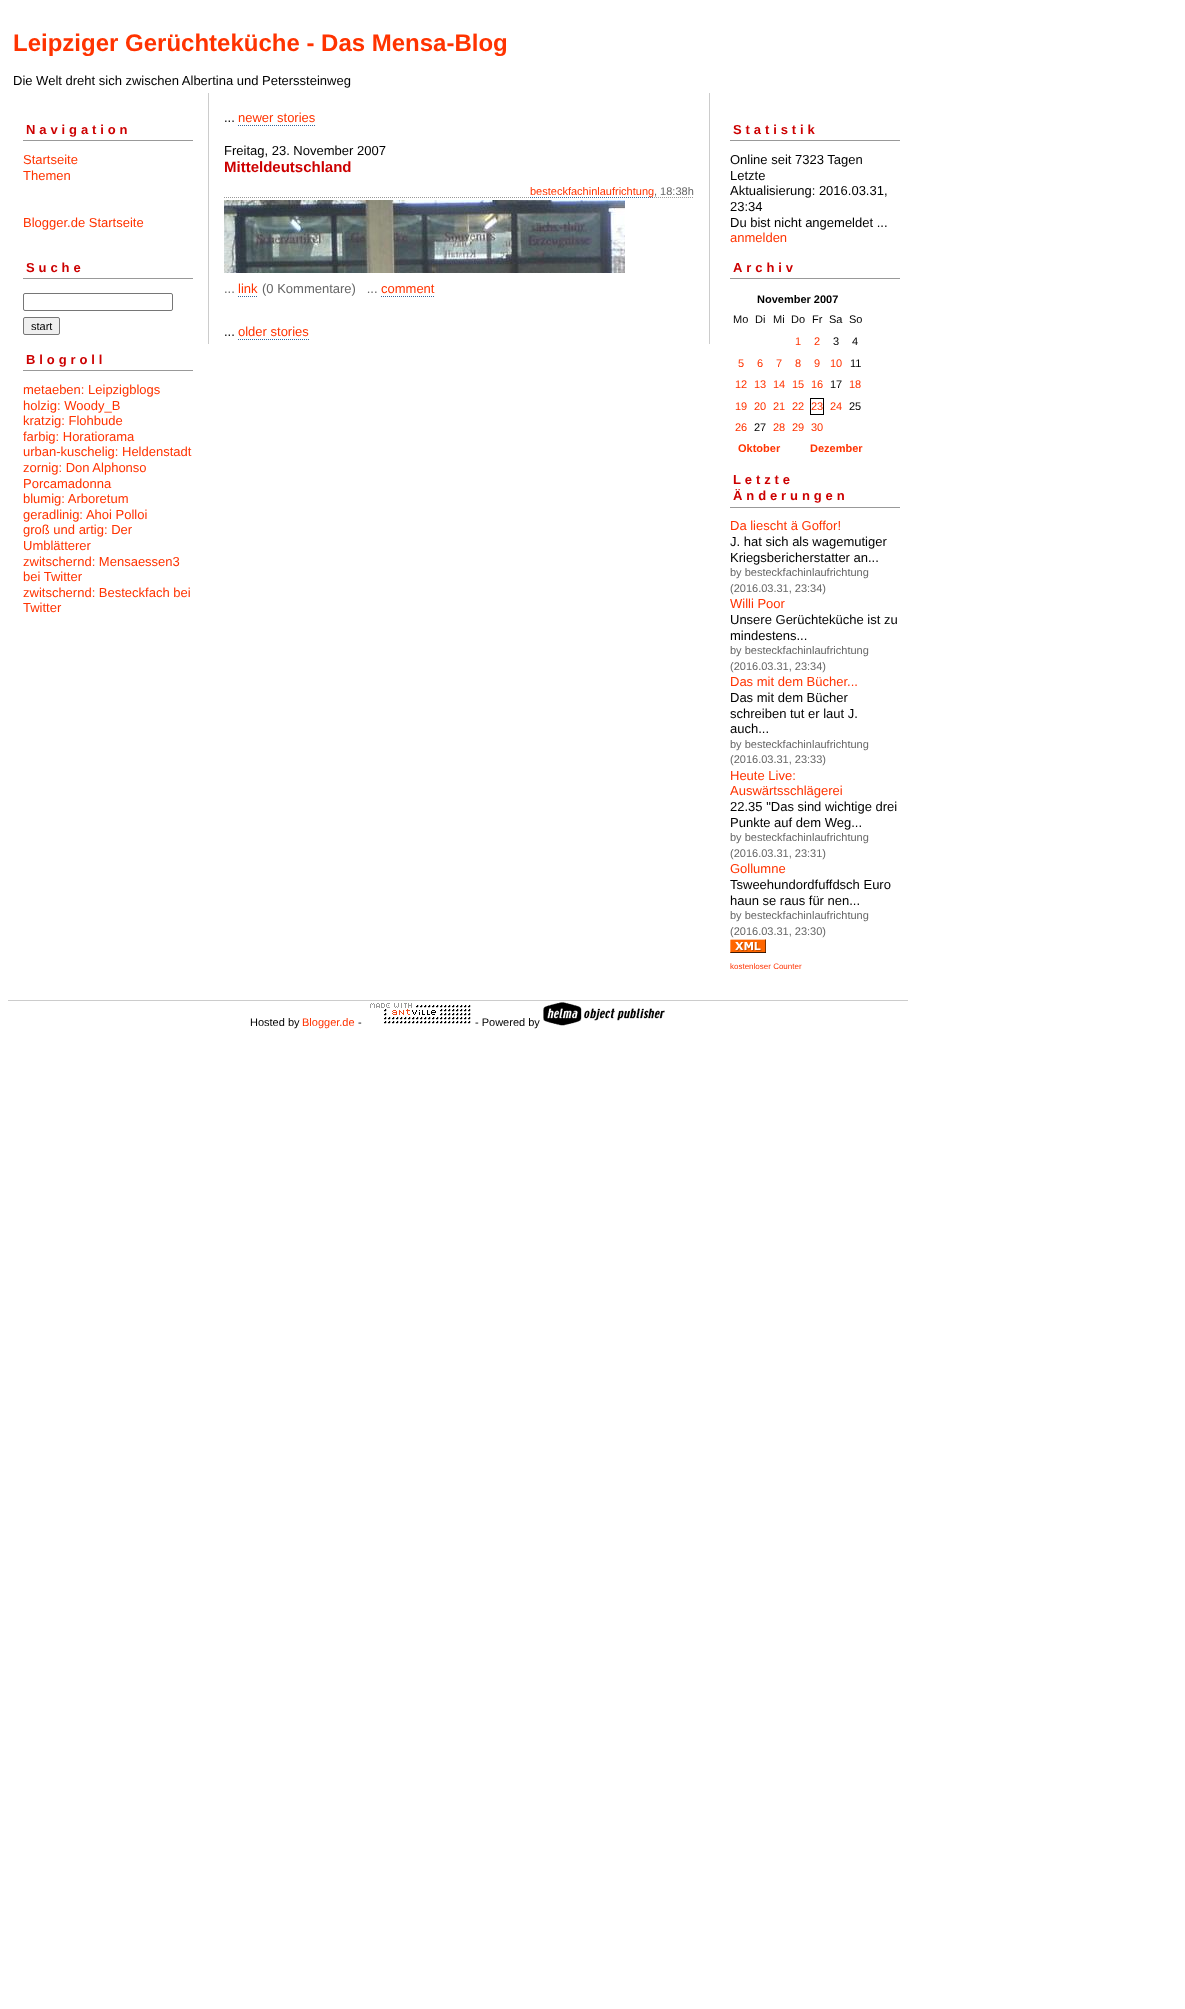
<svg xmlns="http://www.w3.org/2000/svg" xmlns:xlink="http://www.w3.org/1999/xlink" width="1185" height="2009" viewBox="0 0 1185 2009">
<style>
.cls-1{font:bold 24px Liberation Sans;fill:#ff3300}
.cls-2{font:13px Liberation Sans;fill:#000000}
.cls-3{font:bold 13px Liberation Sans;letter-spacing:3.9px;fill:#cc0000}
.cls-4{font:13px Liberation Sans;fill:#ff3300}
.cls-5{font:11px Liberation Sans;fill:#000000}
.cls-6{font:bold 15px Liberation Sans;fill:#cc0000}
.cls-7{font:11px Liberation Sans;fill:#ff3300}
.cls-8{font:11px Liberation Sans;fill:#666666}
.cls-9{font:13px Liberation Sans;fill:#666666}
.cls-10{font:bold 11px Liberation Sans;fill:#000000}
.cls-11{font:bold 11px Liberation Sans;fill:#ff3300}
.cls-12{font:8px Liberation Sans;fill:#ff3300}
</style>
<rect width="100%" height="100%" fill="#ffffff"/>
<rect fill="#999999" x="23" y="140" width="170" height="1"/>
<rect fill="#999999" x="23" y="278" width="170" height="1"/>
<rect fill="none" stroke="#767676" x="23.5" y="293.5" width="149" height="17" rx="1.5"/>
<rect fill="#efefef" stroke="#767676" x="23.5" y="317.5" width="36" height="17" rx="1.5"/>
<rect fill="#999999" x="23" y="370" width="170" height="1"/>
<rect fill="#cccccc" x="709" y="93" width="1" height="251"/>
<rect fill="#cccccc" x="208" y="93" width="1" height="251"/>
<path fill="none" stroke="#336699" stroke-dasharray="1 1" d="M238 125.5H316"/>
<path fill="none" stroke="#999999" stroke-dasharray="1 1" d="M224 197.5H694"/>
<path fill="none" stroke="#336699" stroke-dasharray="1 1" d="M530 197.5H654"/>
<image xlink:href="image0.png" x="224" y="200" width="401" height="73"/>
<path fill="none" stroke="#336699" stroke-dasharray="1 1" d="M238 296.5H258"/>
<path fill="none" stroke="#336699" stroke-dasharray="1 1" d="M381 296.5H434"/>
<path fill="none" stroke="#336699" stroke-dasharray="1 1" d="M238 339.5H309"/>
<rect fill="#999999" x="730" y="140" width="170" height="1"/>
<rect fill="#999999" x="730" y="278" width="170" height="1"/>
<rect fill="none" stroke="#000000" x="810.5" y="398.5" width="13" height="16"/>
<rect fill="#999999" x="730" y="507" width="170" height="1"/>
<image xlink:href="image1.png" x="730" y="939" width="36" height="14"/>
<rect fill="#cccccc" x="8" y="1000" width="900" height="1"/>
<image xlink:href="image2.png" x="370" y="1003" width="101" height="21"/>
<image xlink:href="image3.png" x="543" y="1002" width="122" height="24"/>
<text class="cls-1" x="13" y="51">Leipziger Gerüchteküche - Das Mensa-Blog</text>
<text class="cls-2" x="13" y="85">Die Welt dreht sich zwischen Albertina und Peterssteinweg</text>
<text class="cls-3" x="26" y="134">Navigation</text>
<text class="cls-4"><tspan x="23" y="164">Startseite</tspan><tspan x="23" y="180">Themen</tspan></text>
<text class="cls-4" x="23" y="227">Blogger.de Startseite</text>
<text class="cls-3" x="26" y="272">Suche</text>
<text class="cls-5" x="31" y="330">start</text>
<text class="cls-3" x="26" y="364">Blogroll</text>
<text class="cls-4"><tspan x="23" y="394">metaeben: Leipzigblogs</tspan><tspan x="23" y="410">holzig: Woody_B</tspan><tspan x="23" y="425">kratzig: Flohbude</tspan><tspan x="23" y="441">farbig: Horatiorama</tspan><tspan x="23" y="456">urban-kuschelig: Heldenstadt</tspan><tspan x="23" y="472">zornig: Don Alphonso</tspan><tspan x="23" y="488">Porcamadonna</tspan><tspan x="23" y="503">blumig: Arboretum</tspan><tspan x="23" y="519">geradlinig: Ahoi Polloi</tspan><tspan x="23" y="534">groß und artig: Der</tspan><tspan x="23" y="550">Umblätterer</tspan><tspan x="23" y="566">zwitschernd: Mensaessen3</tspan><tspan x="23" y="581">bei Twitter</tspan><tspan x="23" y="597">zwitschernd: Besteckfach bei</tspan><tspan x="23" y="612">Twitter</tspan></text>
<text class="cls-2" x="224" y="122">...</text>
<text class="cls-4" x="238" y="122">newer stories</text>
<text class="cls-2" x="224" y="155">Freitag, 23. November 2007</text>
<text class="cls-6" x="224" y="172">Mitteldeutschland</text>
<text class="cls-7" x="530" y="195">besteckfachinlaufrichtung</text>
<text class="cls-8" x="654" y="195">, 18:38h</text>
<text class="cls-9" x="224" y="293">...</text>
<text class="cls-4" x="238" y="293">link</text>
<text class="cls-9" xml:space="preserve" x="262" y="293">(0 Kommentare)   ...</text>
<text class="cls-4" x="381" y="293">comment</text>
<text class="cls-2" x="224" y="336">...</text>
<text class="cls-4" x="238" y="336">older stories</text>
<text class="cls-3" x="733" y="134">Statistik</text>
<text class="cls-2"><tspan x="730" y="164">Online seit 7323 Tagen</tspan><tspan x="730" y="180">Letzte</tspan><tspan x="730" y="195">Aktualisierung: 2016.03.31,</tspan><tspan x="730" y="211">23:34</tspan><tspan x="730" y="227">Du bist nicht angemeldet ...</tspan></text>
<text class="cls-4" x="730" y="242">anmelden</text>
<text class="cls-3" x="733" y="272">Archiv</text>
<text class="cls-10" x="757" y="303">November 2007</text>
<text class="cls-5" x="733" y="323">Mo</text>
<text class="cls-5" x="755" y="323">Di</text>
<text class="cls-5" x="773" y="323">Mi</text>
<text class="cls-5" x="791" y="323">Do</text>
<text class="cls-5" x="812" y="323">Fr</text>
<text class="cls-5" x="829" y="323">Sa</text>
<text class="cls-5" x="849" y="323">So</text>
<text class="cls-7" x="795" y="345">1</text>
<text class="cls-7" x="814" y="345">2</text>
<text class="cls-5" x="833" y="345">3</text>
<text class="cls-5" x="852" y="345">4</text>
<text class="cls-7" x="738" y="367">5</text>
<text class="cls-7" x="757" y="367">6</text>
<text class="cls-7" x="776" y="367">7</text>
<text class="cls-7" x="795" y="367">8</text>
<text class="cls-7" x="814" y="367">9</text>
<text class="cls-7" x="830" y="367">10</text>
<text class="cls-5" x="850" y="367">11</text>
<text class="cls-7" x="735" y="388">12</text>
<text class="cls-7" x="754" y="388">13</text>
<text class="cls-7" x="773" y="388">14</text>
<text class="cls-7" x="792" y="388">15</text>
<text class="cls-7" x="811" y="388">16</text>
<text class="cls-5" x="830" y="388">17</text>
<text class="cls-7" x="849" y="388">18</text>
<text class="cls-7" x="735" y="410">19</text>
<text class="cls-7" x="754" y="410">20</text>
<text class="cls-7" x="773" y="410">21</text>
<text class="cls-7" x="792" y="410">22</text>
<text class="cls-7" x="811" y="410">23</text>
<text class="cls-7" x="830" y="410">24</text>
<text class="cls-5" x="849" y="410">25</text>
<text class="cls-7" x="735" y="431">26</text>
<text class="cls-5" x="754" y="431">27</text>
<text class="cls-7" x="773" y="431">28</text>
<text class="cls-7" x="792" y="431">29</text>
<text class="cls-7" x="811" y="431">30</text>
<text class="cls-11" x="738" y="452">Oktober</text>
<text class="cls-11" x="810" y="452">Dezember</text>
<text class="cls-3"><tspan x="733" y="484">Letzte</tspan><tspan x="733" y="500">Änderungen</tspan></text>
<text class="cls-4" x="730" y="530">Da liescht ä Goffor!</text>
<text class="cls-2"><tspan x="730" y="546">J. hat sich als wagemutiger</tspan><tspan x="730" y="562">Kriegsbericherstatter an...</tspan></text>
<text class="cls-8"><tspan x="730" y="576">by besteckfachinlaufrichtung</tspan><tspan x="730" y="592">(2016.03.31, 23:34)</tspan></text>
<text class="cls-4" x="730" y="608">Willi Poor</text>
<text class="cls-2"><tspan x="730" y="624">Unsere Gerüchteküche ist zu</tspan><tspan x="730" y="640">mindestens...</tspan></text>
<text class="cls-8"><tspan x="730" y="654">by besteckfachinlaufrichtung</tspan><tspan x="730" y="670">(2016.03.31, 23:34)</tspan></text>
<text class="cls-4" x="730" y="686">Das mit dem Bücher...</text>
<text class="cls-2"><tspan x="730" y="702">Das mit dem Bücher</tspan><tspan x="730" y="718">schreiben tut er laut J.</tspan><tspan x="730" y="733">auch...</tspan></text>
<text class="cls-8"><tspan x="730" y="748">by besteckfachinlaufrichtung</tspan><tspan x="730" y="763">(2016.03.31, 23:33)</tspan></text>
<text class="cls-4"><tspan x="730" y="780">Heute Live:</tspan><tspan x="730" y="795">Auswärtsschlägerei</tspan></text>
<text class="cls-2"><tspan x="730" y="811">22.35 "Das sind wichtige drei</tspan><tspan x="730" y="827">Punkte auf dem Weg...</tspan></text>
<text class="cls-8"><tspan x="730" y="841">by besteckfachinlaufrichtung</tspan><tspan x="730" y="857">(2016.03.31, 23:31)</tspan></text>
<text class="cls-4" x="730" y="873">Gollumne</text>
<text class="cls-2"><tspan x="730" y="889">Tsweehundordfuffdsch Euro</tspan><tspan x="730" y="905">haun se raus für nen...</tspan></text>
<text class="cls-8"><tspan x="730" y="919">by besteckfachinlaufrichtung</tspan><tspan x="730" y="935">(2016.03.31, 23:30)</tspan></text>
<text class="cls-12" x="730" y="969">kostenloser Counter</text>
<text class="cls-5" x="250" y="1026">Hosted by</text>
<text class="cls-7" x="302" y="1026">Blogger.de</text>
<text class="cls-5" x="358" y="1026">-</text>
<text class="cls-5" x="475" y="1026">- Powered by</text>
</svg>
